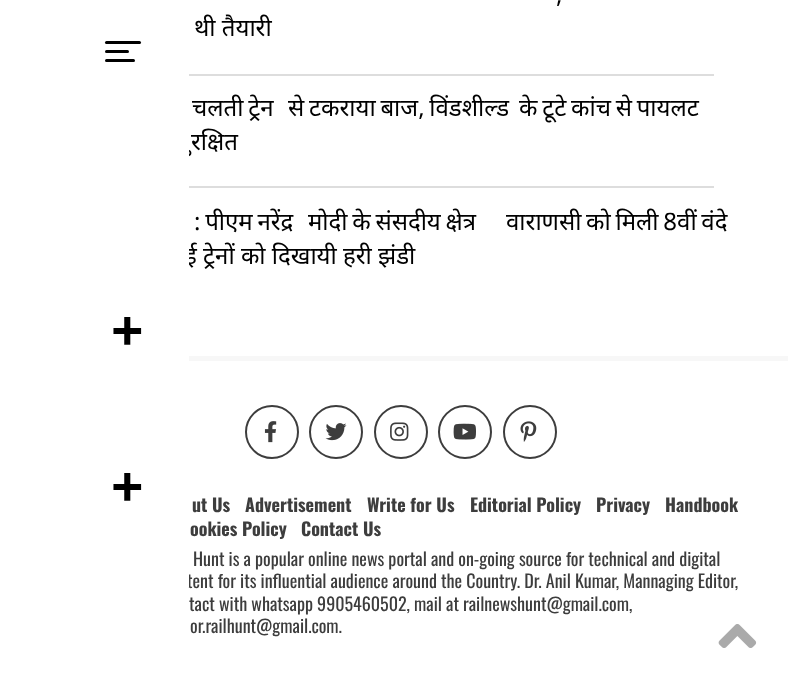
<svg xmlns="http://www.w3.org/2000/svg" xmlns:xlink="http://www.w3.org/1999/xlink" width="788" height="680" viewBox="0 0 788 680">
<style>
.cls-1{font:bold 57px Open Sans;fill:#000000}
.cls-2{font:24px Noto Sans;fill:#000000}
.cls-3{font:bold 18px Oswald;fill:#3d3d3d}
.cls-4{font:18px Oswald;fill:#3d3d3d}
</style>
<rect width="100%" height="100%" fill="#ffffff"/>
<rect fill="#000000" x="105" y="41" width="36" height="3" rx="1.5"/>
<rect fill="#000000" x="105" y="50" width="24" height="3" rx="1.5"/>
<rect fill="#000000" x="105" y="59" width="30" height="3" rx="1.5"/>
<rect fill="#dddddd" x="189" y="74" width="525" height="2"/>
<rect fill="#dddddd" x="189" y="186" width="525" height="2"/>
<rect fill="#f7f7f7" x="189" y="356" width="599" height="5"/>
<circle fill="none" stroke="#3d3d3d" stroke-width="2" cx="272" cy="432" r="26"/>
<image xlink:href="image0.png" x="264" y="421" width="13" height="22"/>
<circle fill="none" stroke="#3d3d3d" stroke-width="2" cx="336" cy="432" r="26"/>
<image xlink:href="image1.png" x="325" y="423" width="22" height="18"/>
<circle fill="none" stroke="#3d3d3d" stroke-width="2" cx="401" cy="432" r="26"/>
<image xlink:href="image2.png" x="390" y="422" width="19" height="19"/>
<circle fill="none" stroke="#3d3d3d" stroke-width="2" cx="465" cy="432" r="26"/>
<image xlink:href="image3.png" x="453" y="423" width="23" height="17"/>
<circle fill="none" stroke="#3d3d3d" stroke-width="2" cx="530" cy="432" r="26"/>
<image xlink:href="image4.png" x="520" y="421" width="17" height="21"/>
<image xlink:href="image5.png" x="718" y="624" width="39" height="24"/>
<text class="cls-1" x="111" y="351">+</text>
<text class="cls-1" x="111" y="507">+</text>
<text class="cls-2" x="556" y="3">,</text>
<text class="cls-2" x="194" y="36">थी तैयारी</text>
<text class="cls-2" x="192" y="116" word-spacing="-1.5">चलती ट्रेन</text>
<text class="cls-2" x="288" y="116" word-spacing="-1.5">से टकराया बाज, विंडशील्ड</text>
<text class="cls-2" x="519" y="116" word-spacing="-1.5">के टूटे कांच से पायलट</text>
<text class="cls-2" x="191" y="150">ुरक्षित</text>
<text class="cls-2" x="194" y="230" word-spacing="-1.5">: पीएम नरेंद्र</text>
<text class="cls-2" x="308" y="230" word-spacing="-1.5">मोदी के संसदीय क्षेत्र</text>
<text class="cls-2" x="506" y="230" word-spacing="-1.5">वाराणसी को मिली 8वीं वंदे</text>
<text class="cls-2" x="185" y="264">ई ट्रेनों को दिखायी हरी झंडी</text>
<text class="cls-3" x="192" y="512">ut Us</text>
<text class="cls-3" x="245" y="512">Advertisement</text>
<text class="cls-3" x="367" y="512">Write for Us</text>
<text class="cls-3" x="470" y="512">Editorial Policy</text>
<text class="cls-3" x="596" y="512">Privacy</text>
<text class="cls-3" x="665" y="512">Handbook</text>
<text class="cls-3" x="190" y="536">ookies Policy</text>
<text class="cls-3" x="301" y="536">Contact Us</text>
<text class="cls-4" x="193" y="566">Hunt is a popular online news portal and on-going source for technical and digital</text>
<text class="cls-4" x="187" y="588">tent for its influential audience around the Country. Dr. Anil Kumar, Mannaging Editor,</text>
<rect fill="#ffffff" x="176" y="148" width="13" height="439"/>
<text class="cls-4" x="189" y="611">tact with whatsapp 9905460502, mail at railnewshunt@gmail.com,</text>
<text class="cls-4" x="190" y="633">or.railhunt@gmail.com.</text>
</svg>
